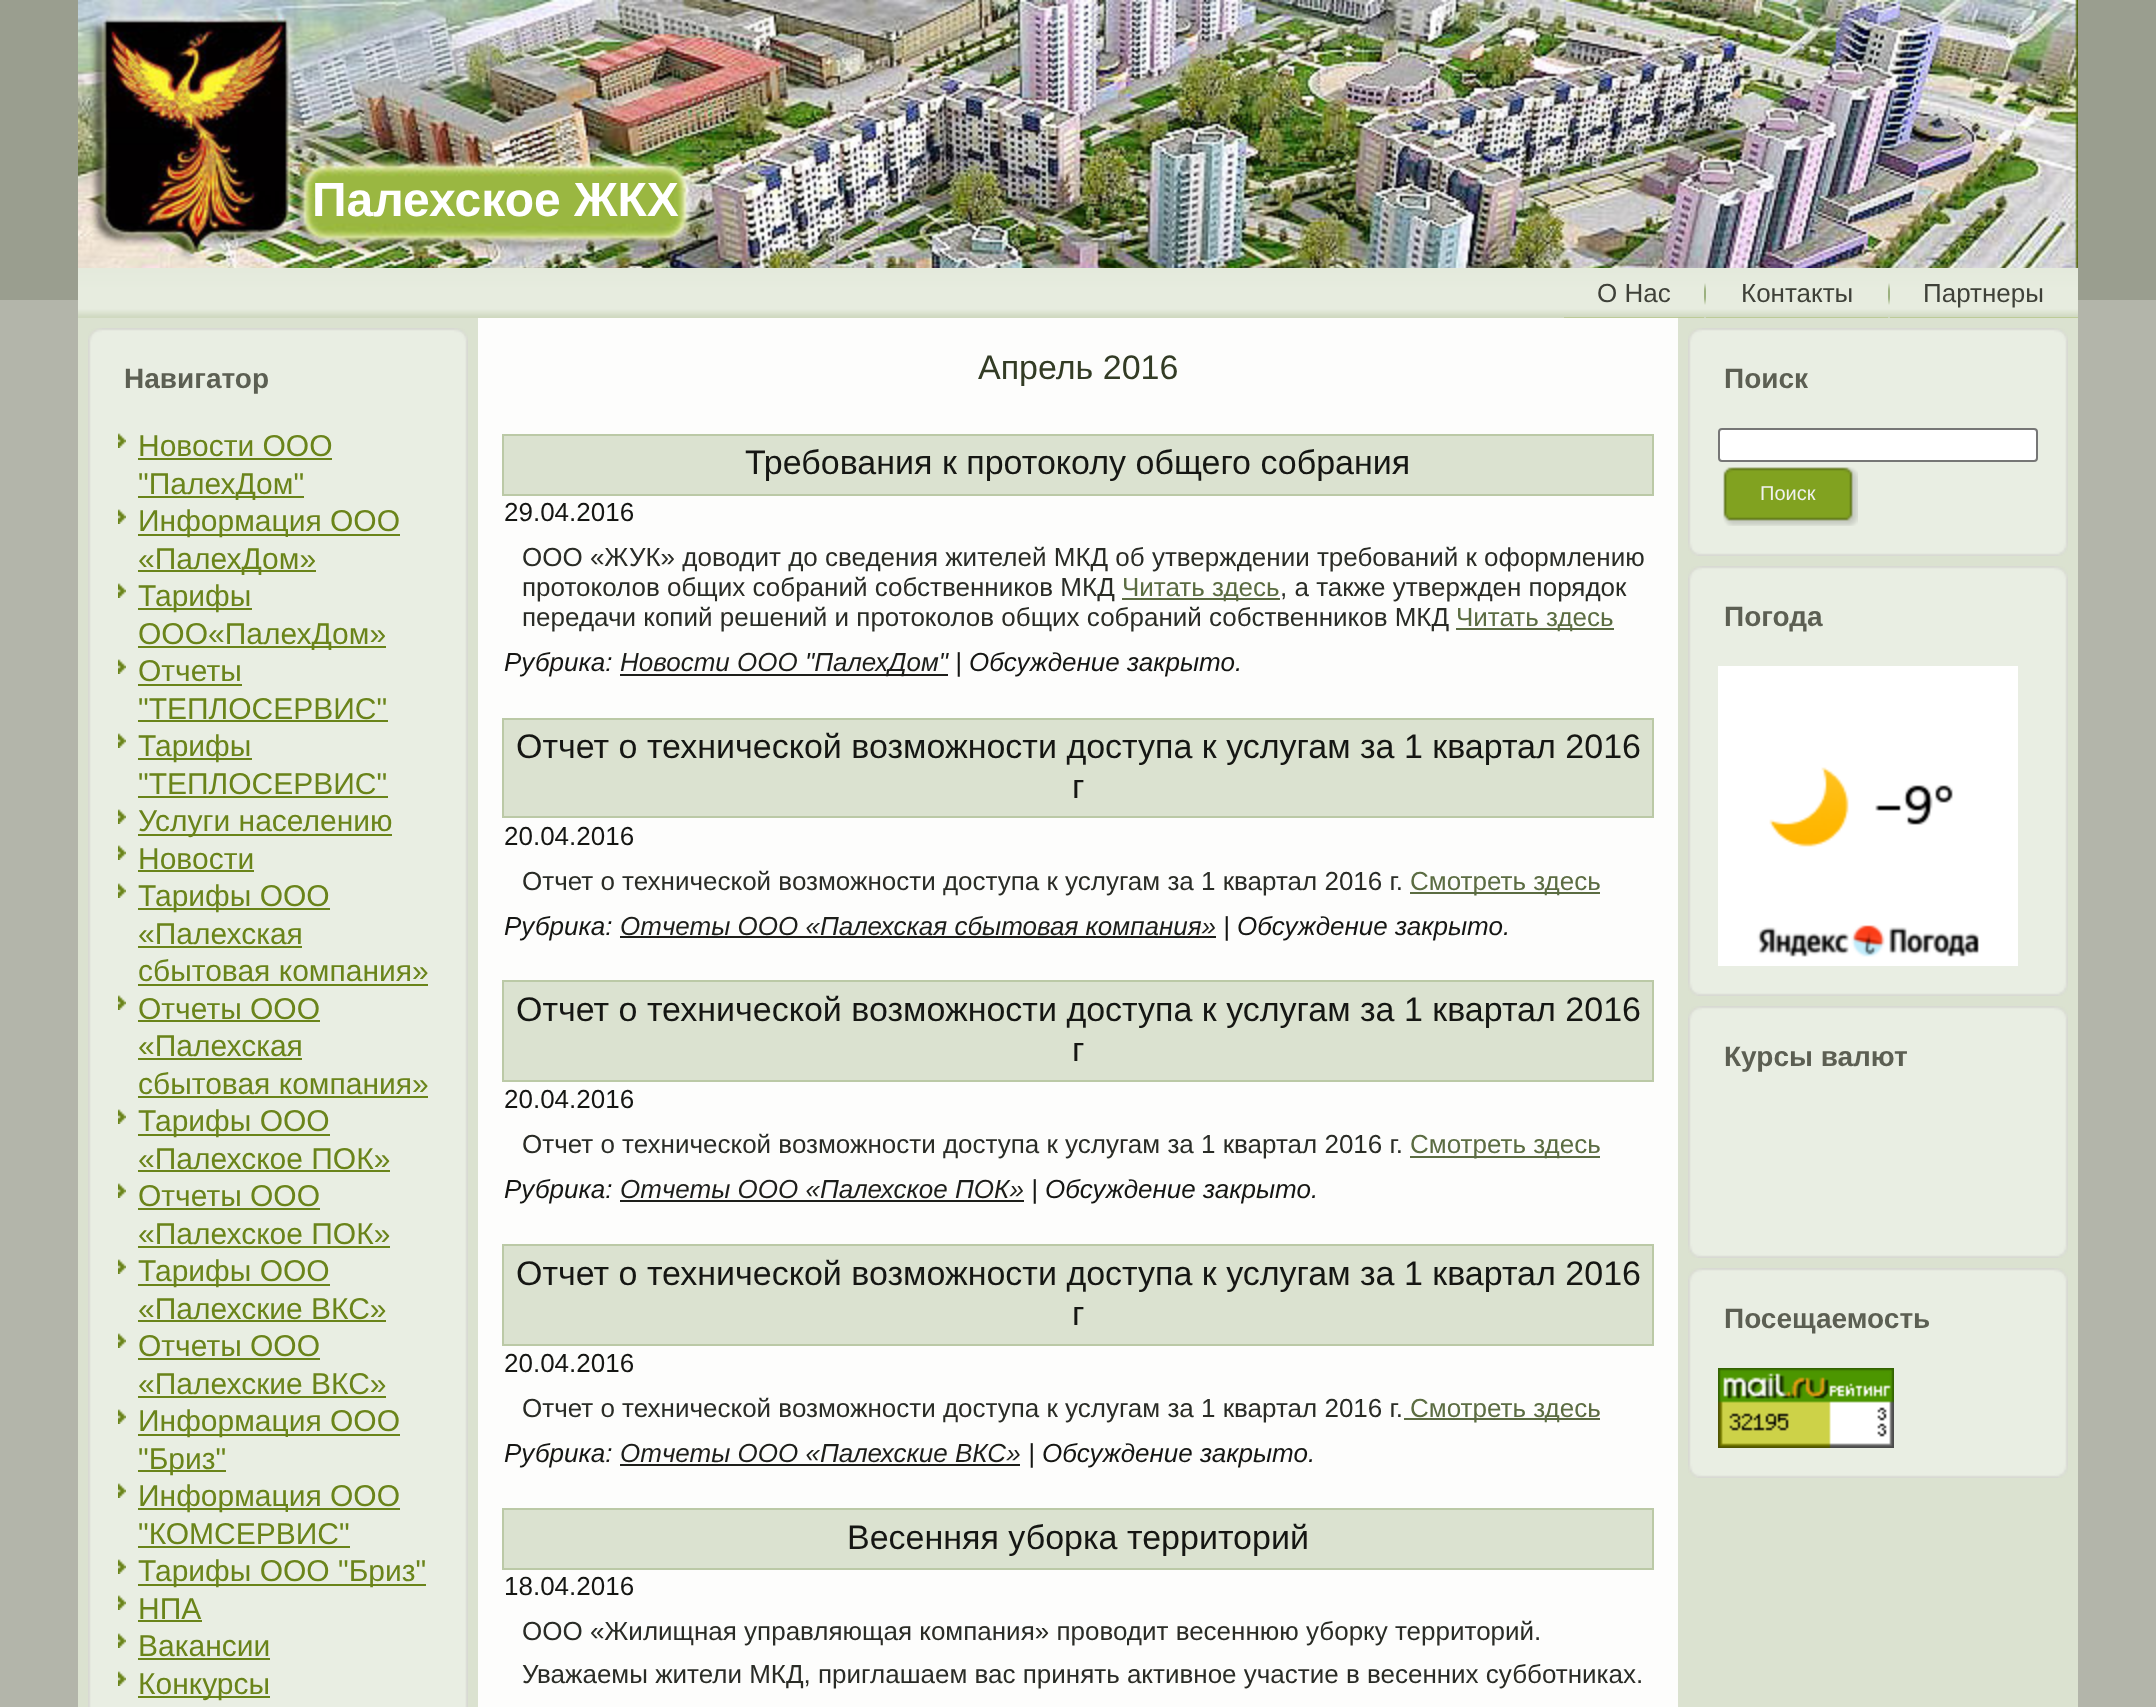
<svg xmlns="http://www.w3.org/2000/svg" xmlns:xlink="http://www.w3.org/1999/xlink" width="2156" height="1707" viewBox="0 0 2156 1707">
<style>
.cls-1{font:bold 48px Liberation Sans;fill:#ffffff}
.cls-2{font:26px Liberation Sans;fill:#3f4139}
.cls-3{font:bold 28px Liberation Sans;fill:#5c5f53}
.cls-4{font:30px Liberation Sans;fill:#6a841a}
.cls-5{font:34px Liberation Sans;fill:#333c25}
.cls-6{font:34px Liberation Sans;fill:#151613}
.cls-7{font:26px Liberation Sans;fill:#151613}
.cls-8{font:26px Liberation Sans;fill:#2a2c26}
.cls-9{font:26px Liberation Sans;fill:#5b6c42}
.cls-10{font:italic 26px Liberation Sans;fill:#151613}
.cls-11{font:italic 26px Liberation Sans;fill:#1d1e1a}
.cls-12{font:20px Liberation Sans;fill:#f0f1ef}
</style>
<rect width="100%" height="100%" fill="#b3b5aa"/>
<rect fill="#9a9e8f" x="0" y="0" width="2156" height="300"/>
<image xlink:href="image0.png" x="78" y="0" width="2000" height="268"/>
<image xlink:href="image1.png" x="78" y="268" width="2000" height="50"/>
<rect fill="#bdcb98" x="1564" y="317" width="140" height="1"/>
<image xlink:href="image2.png" x="1704" y="283" width="2" height="22"/>
<rect fill="#bdcb98" x="1706" y="317" width="182" height="1"/>
<image xlink:href="image2.png" x="1888" y="283" width="2" height="22"/>
<rect fill="#bdcb98" x="1890" y="317" width="188" height="1"/>
<rect fill="#dbe2d0" x="78" y="318" width="400" height="1389"/>
<image xlink:href="image3.png" x="88" y="328" width="14" height="14"/>
<image xlink:href="image4.png" x="102" y="328" width="352" height="14"/>
<image xlink:href="image5.png" x="454" y="328" width="14" height="14"/>
<image xlink:href="image6.png" x="88" y="342" width="14" height="1365"/>
<rect fill="#e9eee3" x="102" y="342" width="352" height="1365"/>
<image xlink:href="image7.png" x="454" y="342" width="14" height="1365"/>
<image xlink:href="image8.png" x="118" y="433" width="8" height="15"/>
<rect fill="#6a841a" x="138" y="458" width="194" height="2"/>
<rect fill="#6a841a" x="138" y="496" width="166" height="2"/>
<image xlink:href="image8.png" x="118" y="509" width="8" height="15"/>
<rect fill="#6a841a" x="138" y="534" width="262" height="2"/>
<rect fill="#6a841a" x="138" y="570" width="178" height="2"/>
<image xlink:href="image8.png" x="118" y="583" width="8" height="15"/>
<rect fill="#6a841a" x="138" y="608" width="114" height="2"/>
<rect fill="#6a841a" x="138" y="646" width="248" height="2"/>
<image xlink:href="image8.png" x="118" y="659" width="8" height="15"/>
<rect fill="#6a841a" x="138" y="684" width="104" height="2"/>
<rect fill="#6a841a" x="138" y="720" width="250" height="2"/>
<image xlink:href="image8.png" x="118" y="733" width="8" height="15"/>
<rect fill="#6a841a" x="138" y="758" width="114" height="2"/>
<rect fill="#6a841a" x="138" y="796" width="250" height="2"/>
<image xlink:href="image8.png" x="118" y="809" width="8" height="15"/>
<rect fill="#6a841a" x="138" y="834" width="254" height="2"/>
<image xlink:href="image8.png" x="118" y="845" width="8" height="15"/>
<rect fill="#6a841a" x="138" y="870" width="116" height="2"/>
<image xlink:href="image8.png" x="118" y="883" width="8" height="15"/>
<rect fill="#6a841a" x="138" y="908" width="192" height="2"/>
<rect fill="#6a841a" x="138" y="946" width="164" height="2"/>
<rect fill="#6a841a" x="138" y="984" width="290" height="2"/>
<image xlink:href="image8.png" x="118" y="995" width="8" height="15"/>
<rect fill="#6a841a" x="138" y="1020" width="182" height="2"/>
<rect fill="#6a841a" x="138" y="1058" width="164" height="2"/>
<rect fill="#6a841a" x="138" y="1096" width="290" height="2"/>
<image xlink:href="image8.png" x="118" y="1109" width="8" height="15"/>
<rect fill="#6a841a" x="138" y="1134" width="192" height="2"/>
<rect fill="#6a841a" x="138" y="1170" width="252" height="2"/>
<image xlink:href="image8.png" x="118" y="1183" width="8" height="15"/>
<rect fill="#6a841a" x="138" y="1208" width="182" height="2"/>
<rect fill="#6a841a" x="138" y="1246" width="252" height="2"/>
<image xlink:href="image8.png" x="118" y="1259" width="8" height="15"/>
<rect fill="#6a841a" x="138" y="1284" width="192" height="2"/>
<rect fill="#6a841a" x="138" y="1320" width="248" height="2"/>
<image xlink:href="image8.png" x="118" y="1333" width="8" height="15"/>
<rect fill="#6a841a" x="138" y="1358" width="182" height="2"/>
<rect fill="#6a841a" x="138" y="1396" width="248" height="2"/>
<image xlink:href="image8.png" x="118" y="1409" width="8" height="15"/>
<rect fill="#6a841a" x="138" y="1434" width="262" height="2"/>
<rect fill="#6a841a" x="138" y="1470" width="88" height="2"/>
<image xlink:href="image8.png" x="118" y="1483" width="8" height="15"/>
<rect fill="#6a841a" x="138" y="1508" width="262" height="2"/>
<rect fill="#6a841a" x="138" y="1546" width="212" height="2"/>
<image xlink:href="image8.png" x="118" y="1559" width="8" height="15"/>
<rect fill="#6a841a" x="138" y="1584" width="288" height="2"/>
<image xlink:href="image8.png" x="118" y="1595" width="8" height="15"/>
<rect fill="#6a841a" x="138" y="1620" width="64" height="2"/>
<image xlink:href="image8.png" x="118" y="1633" width="8" height="15"/>
<rect fill="#6a841a" x="138" y="1658" width="132" height="2"/>
<image xlink:href="image8.png" x="118" y="1671" width="8" height="15"/>
<rect fill="#6a841a" x="138" y="1696" width="132" height="2"/>
<rect fill="#fdfdfc" x="478" y="318" width="1200" height="1389"/>
<rect fill="#dbe2d0" stroke="#bbc9a6" stroke-width="2" x="503" y="435" width="1150" height="60"/>
<rect fill="#5b6c42" x="1122" y="598" width="158" height="2"/>
<rect fill="#5b6c42" x="1456" y="628" width="158" height="2"/>
<rect fill="#1d1e1a" x="620" y="674" width="328" height="2"/>
<rect fill="#dbe2d0" stroke="#bbc9a6" stroke-width="2" x="503" y="719" width="1150" height="98"/>
<rect fill="#5b6c42" x="1410" y="892" width="190" height="2"/>
<rect fill="#1d1e1a" x="620" y="936" width="596" height="2"/>
<rect fill="#dbe2d0" stroke="#bbc9a6" stroke-width="2" x="503" y="981" width="1150" height="100"/>
<rect fill="#5b6c42" x="1410" y="1156" width="190" height="2"/>
<rect fill="#1d1e1a" x="620" y="1200" width="404" height="2"/>
<rect fill="#dbe2d0" stroke="#bbc9a6" stroke-width="2" x="503" y="1245" width="1150" height="100"/>
<rect fill="#5b6c42" x="1404" y="1418" width="196" height="2"/>
<rect fill="#1d1e1a" x="620" y="1464" width="400" height="2"/>
<rect fill="#dbe2d0" stroke="#bbc9a6" stroke-width="2" x="503" y="1509" width="1150" height="60"/>
<rect fill="#dbe2d0" x="1678" y="318" width="400" height="1389"/>
<image xlink:href="image3.png" x="1688" y="328" width="14" height="14"/>
<image xlink:href="image4.png" x="1702" y="328" width="352" height="14"/>
<image xlink:href="image5.png" x="2054" y="328" width="14" height="14"/>
<image xlink:href="image9.png" x="1688" y="342" width="14" height="200"/>
<rect fill="#e9eee3" x="1702" y="342" width="352" height="200"/>
<image xlink:href="image10.png" x="2054" y="342" width="14" height="200"/>
<rect fill="#ffffff" stroke="#767676" stroke-width="2" x="1719" y="429" width="318" height="32" rx="3"/>
<image xlink:href="image11.png" x="1723" y="467" width="115" height="59"/>
<image xlink:href="image12.png" x="1838" y="467" width="20" height="59"/>
<image xlink:href="image13.png" x="1688" y="542" width="14" height="14"/>
<image xlink:href="image14.png" x="1702" y="542" width="352" height="14"/>
<image xlink:href="image15.png" x="2054" y="542" width="14" height="14"/>
<image xlink:href="image3.png" x="1688" y="566" width="14" height="14"/>
<image xlink:href="image4.png" x="1702" y="566" width="352" height="14"/>
<image xlink:href="image5.png" x="2054" y="566" width="14" height="14"/>
<image xlink:href="image16.png" x="1688" y="580" width="14" height="402"/>
<rect fill="#e9eee3" x="1702" y="580" width="352" height="402"/>
<image xlink:href="image17.png" x="2054" y="580" width="14" height="402"/>
<image xlink:href="image18.png" x="1718" y="666" width="300" height="300"/>
<image xlink:href="image13.png" x="1688" y="982" width="14" height="14"/>
<image xlink:href="image14.png" x="1702" y="982" width="352" height="14"/>
<image xlink:href="image15.png" x="2054" y="982" width="14" height="14"/>
<image xlink:href="image3.png" x="1688" y="1006" width="14" height="14"/>
<image xlink:href="image4.png" x="1702" y="1006" width="352" height="14"/>
<image xlink:href="image5.png" x="2054" y="1006" width="14" height="14"/>
<image xlink:href="image19.png" x="1688" y="1020" width="14" height="224"/>
<rect fill="#e9eee3" x="1702" y="1020" width="352" height="224"/>
<image xlink:href="image20.png" x="2054" y="1020" width="14" height="224"/>
<image xlink:href="image13.png" x="1688" y="1244" width="14" height="14"/>
<image xlink:href="image14.png" x="1702" y="1244" width="352" height="14"/>
<image xlink:href="image15.png" x="2054" y="1244" width="14" height="14"/>
<image xlink:href="image3.png" x="1688" y="1268" width="14" height="14"/>
<image xlink:href="image4.png" x="1702" y="1268" width="352" height="14"/>
<image xlink:href="image5.png" x="2054" y="1268" width="14" height="14"/>
<image xlink:href="image21.png" x="1688" y="1282" width="14" height="182"/>
<rect fill="#e9eee3" x="1702" y="1282" width="352" height="182"/>
<image xlink:href="image22.png" x="2054" y="1282" width="14" height="182"/>
<image xlink:href="image23.png" x="1718" y="1368" width="176" height="80"/>
<image xlink:href="image13.png" x="1688" y="1464" width="14" height="14"/>
<image xlink:href="image14.png" x="1702" y="1464" width="352" height="14"/>
<image xlink:href="image15.png" x="2054" y="1464" width="14" height="14"/>
<text class="cls-1" x="312" y="216">Палехское ЖКХ</text>
<text class="cls-2" x="1597" y="302">О Нас</text>
<text class="cls-2" x="1741" y="302">Контакты</text>
<text class="cls-2" x="1923" y="302">Партнеры</text>
<text class="cls-3" x="124" y="388">Навигатор</text>
<text class="cls-4"><tspan x="138" y="456">Новости ООО</tspan><tspan x="138" y="494">"ПалехДом"</tspan><tspan x="138" y="531">Информация ООО</tspan><tspan x="138" y="569">«ПалехДом»</tspan><tspan x="138" y="606">Тарифы</tspan><tspan x="138" y="644">ООО«ПалехДом»</tspan><tspan x="138" y="681">Отчеты</tspan><tspan x="138" y="719">"ТЕПЛОСЕРВИС"</tspan><tspan x="138" y="756">Тарифы</tspan><tspan x="138" y="794">"ТЕПЛОСЕРВИС"</tspan><tspan x="138" y="831">Услуги населению</tspan><tspan x="138" y="869">Новости</tspan><tspan x="138" y="906">Тарифы ООО</tspan><tspan x="138" y="944">«Палехская</tspan><tspan x="138" y="981">сбытовая компания»</tspan><tspan x="138" y="1019">Отчеты ООО</tspan><tspan x="138" y="1056">«Палехская</tspan><tspan x="138" y="1094">сбытовая компания»</tspan><tspan x="138" y="1131">Тарифы ООО</tspan><tspan x="138" y="1169">«Палехское ПОК»</tspan><tspan x="138" y="1206">Отчеты ООО</tspan><tspan x="138" y="1244">«Палехское ПОК»</tspan><tspan x="138" y="1281">Тарифы ООО</tspan><tspan x="138" y="1319">«Палехские ВКС»</tspan><tspan x="138" y="1356">Отчеты ООО</tspan><tspan x="138" y="1394">«Палехские ВКС»</tspan><tspan x="138" y="1431">Информация ООО</tspan><tspan x="138" y="1469">"Бриз"</tspan><tspan x="138" y="1506">Информация ООО</tspan><tspan x="138" y="1544">"КОМСЕРВИС"</tspan><tspan x="138" y="1581">Тарифы ООО "Бриз"</tspan><tspan x="138" y="1619">НПА</tspan><tspan x="138" y="1656">Вакансии</tspan><tspan x="138" y="1694">Конкурсы</tspan></text>
<text class="cls-5" x="978" y="379">Апрель 2016</text>
<text class="cls-6" x="745" y="474">Требования к протоколу общего собрания</text>
<text class="cls-7" x="504" y="521">29.04.2016</text>
<text class="cls-8"><tspan x="522" y="566">ООО «ЖУК» доводит до сведения жителей МКД об утверждении требований к оформлению</tspan><tspan x="522" y="596">протоколов общих собраний собственников МКД</tspan></text>
<text class="cls-9" x="1122" y="596">Читать здесь</text>
<text class="cls-8" x="1280" y="596">, а также утвержден порядок</text>
<text class="cls-8" x="522" y="626">передачи копий решений и протоколов общих собраний собственников МКД</text>
<text class="cls-9" x="1456" y="626">Читать здесь</text>
<text class="cls-10" x="504" y="671">Рубрика:</text>
<text class="cls-11" x="620" y="671">Новости ООО "ПалехДом"</text>
<text class="cls-10" x="955" y="671">| Обсуждение закрыто.</text>
<text class="cls-6" x="516" y="758">Отчет о технической возможности доступа к услугам за 1 квартал 2016</text>
<text class="cls-6" x="1072" y="798">г</text>
<text class="cls-7" x="504" y="845">20.04.2016</text>
<text class="cls-8" x="522" y="890">Отчет о технической возможности доступа к услугам за 1 квартал 2016 г.</text>
<text class="cls-9" x="1410" y="890">Смотреть здесь</text>
<text class="cls-10" x="504" y="935">Рубрика:</text>
<text class="cls-11" x="620" y="935">Отчеты ООО «Палехская сбытовая компания»</text>
<text class="cls-10" x="1223" y="935">| Обсуждение закрыто.</text>
<text class="cls-6" x="516" y="1021">Отчет о технической возможности доступа к услугам за 1 квартал 2016</text>
<text class="cls-6" x="1072" y="1061">г</text>
<text class="cls-7" x="504" y="1108">20.04.2016</text>
<text class="cls-8" x="522" y="1153">Отчет о технической возможности доступа к услугам за 1 квартал 2016 г.</text>
<text class="cls-9" x="1410" y="1153">Смотреть здесь</text>
<text class="cls-10" x="504" y="1198">Рубрика:</text>
<text class="cls-11" x="620" y="1198">Отчеты ООО «Палехское ПОК»</text>
<text class="cls-10" x="1031" y="1198">| Обсуждение закрыто.</text>
<text class="cls-6" x="516" y="1285">Отчет о технической возможности доступа к услугам за 1 квартал 2016</text>
<text class="cls-6" x="1072" y="1325">г</text>
<text class="cls-7" x="504" y="1372">20.04.2016</text>
<text class="cls-8" x="522" y="1417">Отчет о технической возможности доступа к услугам за 1 квартал 2016 г.</text>
<text class="cls-9" x="1410" y="1417">Смотреть здесь</text>
<text class="cls-10" x="504" y="1462">Рубрика:</text>
<text class="cls-11" x="620" y="1462">Отчеты ООО «Палехские ВКС»</text>
<text class="cls-10" x="1028" y="1462">| Обсуждение закрыто.</text>
<text class="cls-6" x="847" y="1549">Весенняя уборка территорий</text>
<text class="cls-7" x="504" y="1595">18.04.2016</text>
<text class="cls-8"><tspan x="522" y="1640">ООО «Жилищная управляющая компания» проводит весеннюю уборку территорий.</tspan><tspan x="522" y="1683">Уважаемы жители МКД, приглашаем вас принять активное участие в весенних субботниках.</tspan></text>
<text class="cls-3" x="1724" y="388">Поиск</text>
<text class="cls-12" x="1760" y="500">Поиск</text>
<text class="cls-3" x="1724" y="626">Погода</text>
<text class="cls-3" x="1724" y="1066">Курсы валют</text>
<text class="cls-3" x="1724" y="1328">Посещаемость</text>
</svg>
